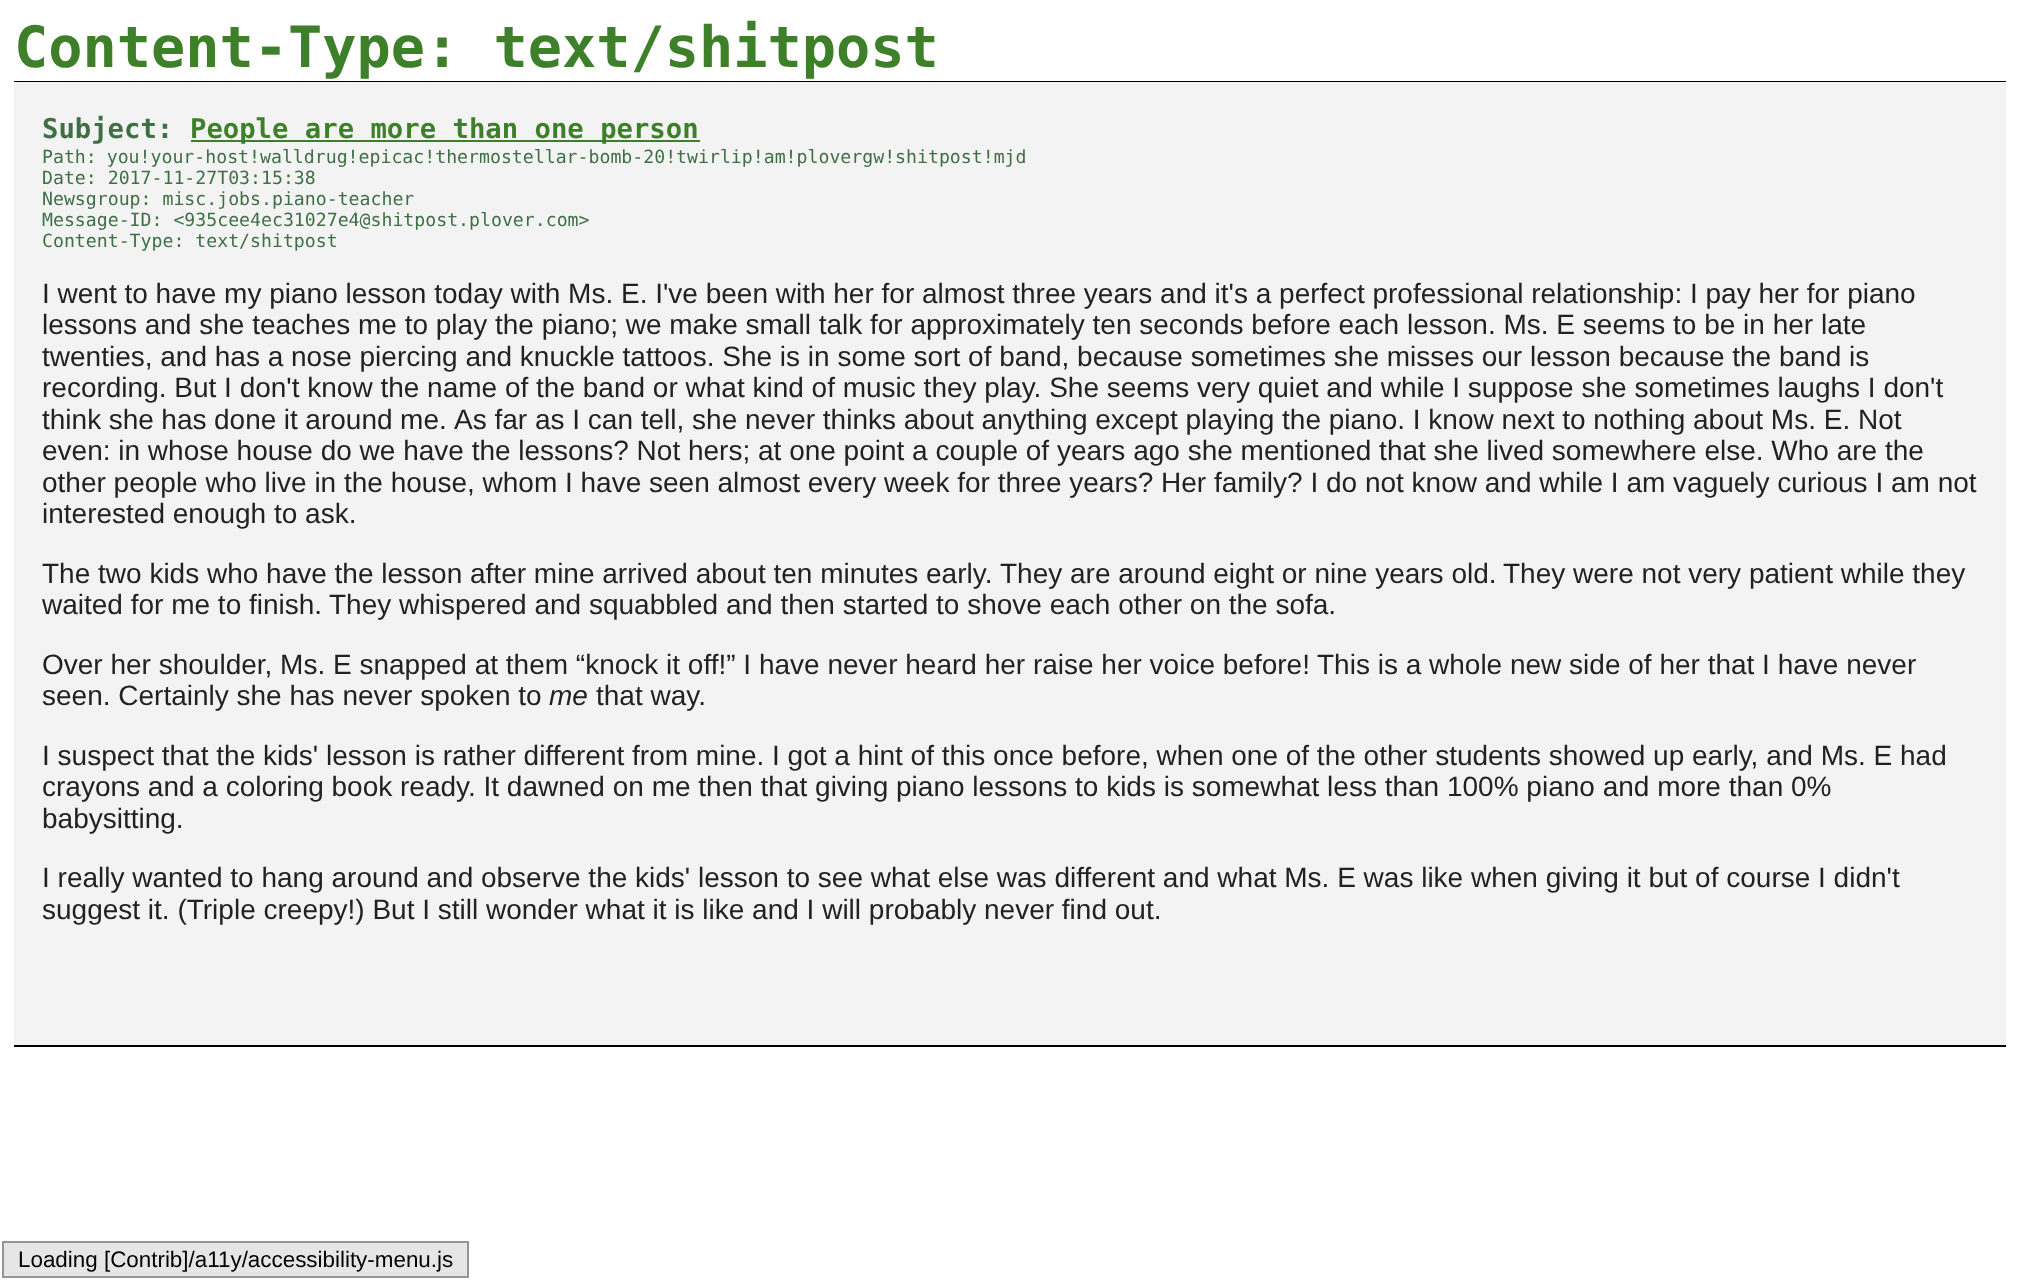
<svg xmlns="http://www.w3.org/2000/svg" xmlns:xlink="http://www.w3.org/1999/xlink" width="2018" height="1281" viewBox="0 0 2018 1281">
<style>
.cls-1{font:bold 56.9px DejaVu Sans Mono;fill:#3e7f2a}
.cls-2{font:bold 27.25px DejaVu Sans Mono;fill:#3e6f45}
.cls-3{font:bold 27.25px DejaVu Sans Mono;fill:#3e7f2a}
.cls-4{font:18.2px DejaVu Sans Mono;fill:#3e6f45}
.cls-5{font:28px Liberation Sans;fill:#222222}
.cls-6{font:italic 28px Liberation Sans;fill:#222222}
.cls-7{font:22.4px Liberation Sans;fill:#000000}
</style>
<rect width="100%" height="100%" fill="#ffffff"/>
<rect fill="#000000" x="14" y="81" width="1992" height="1"/>
<rect fill="#000000" x="14" y="1045" width="1992" height="2"/>
<rect fill="#f3f3f3" x="14" y="82" width="1992" height="963"/>
<rect fill="#3e7f2a" x="191" y="140" width="509" height="2"/>
<rect fill="#e6e6e6" stroke="#959595" stroke-width="2" x="3" y="1242" width="465" height="35"/>
<text class="cls-1" x="14" y="67">Content-Type: text/shitpost</text>
<text class="cls-2" x="42" y="138">Subject:</text>
<text class="cls-3" x="190" y="138">People are more than one person</text>
<text class="cls-4"><tspan x="42" y="163" word-spacing="-1">Path: you!your-host!walldrug!epicac!thermostellar-bomb-20!twirlip!am!plovergw!shitpost!mjd</tspan><tspan x="42" y="184">Date: 2017-11-27T03:15:38</tspan><tspan x="42" y="205">Newsgroup: misc.jobs.piano-teacher</tspan><tspan x="42" y="226">Message-ID: &lt;935cee4ec31027e4@shitpost.plover.com&gt;</tspan><tspan x="42" y="247">Content-Type: text/shitpost</tspan></text>
<text class="cls-5"><tspan x="42" y="303">I went to have my piano lesson today with Ms. E. I've been with her for almost three years and it's a perfect professional relationship: I pay her for piano</tspan><tspan x="42" y="334">lessons and she teaches me to play the piano; we make small talk for approximately ten seconds before each lesson. Ms. E seems to be in her late</tspan><tspan x="42" y="366">twenties, and has a nose piercing and knuckle tattoos. She is in some sort of band, because sometimes she misses our lesson because the band is</tspan><tspan x="42" y="397">recording. But I don't know the name of the band or what kind of music they play. She seems very quiet and while I suppose she sometimes laughs I don't</tspan><tspan x="42" y="429" word-spacing="-0.25">think she has done it around me.</tspan></text>
<text class="cls-5" x="454" y="429">As far as I can tell, she never thinks about anything except playing the piano. I know next to nothing about Ms. E. Not</text>
<text class="cls-5"><tspan x="42" y="460">even: in whose house do we have the lessons? Not hers; at one point a couple of years ago she mentioned that she lived somewhere else. Who are the</tspan><tspan x="42" y="492">other people who live in the house, whom I have seen almost every week for three years? Her family? I do not know and while I am vaguely curious I am not</tspan><tspan x="42" y="523">interested enough to ask.</tspan></text>
<text class="cls-5" x="42" y="583">The two kids who have the lesson after mine arrived about ten minutes early.</text>
<text class="cls-5" x="1000" y="583">They are around eight or nine years old.</text>
<text class="cls-5" x="1503" y="583">They were not very patient while they</text>
<text class="cls-5" x="42" y="614">waited for me to finish.</text>
<text class="cls-5" x="329" y="614">They whispered and squabbled and then started to shove each other on the sofa.</text>
<text class="cls-5" x="42" y="674">Over her shoulder, Ms. E snapped at them “knock it off!” I have never heard her raise her voice before!</text>
<text class="cls-5" x="1317" y="674">This is a whole new side of her that I have never</text>
<text class="cls-5" x="42" y="705">seen. Certainly she has never spoken to</text>
<text class="cls-6" x="549" y="705">me</text>
<text class="cls-5" x="596" y="705">that way.</text>
<text class="cls-5"><tspan x="42" y="765">I suspect that the kids' lesson is rather different from mine. I got a hint of this once before, when one of the other students showed up early, and Ms. E had</tspan><tspan x="42" y="796">crayons and a coloring book ready. It dawned on me then that giving piano lessons to kids is somewhat less than 100% piano and more than 0%</tspan><tspan x="42" y="828">babysitting.</tspan></text>
<text class="cls-5"><tspan x="42" y="887">I really wanted to hang around and observe the kids' lesson to see what else was different and what Ms. E was like when giving it but of course I didn't</tspan><tspan x="42" y="919">suggest it. (Triple creepy!) But I still wonder what it is like and I will probably never find out.</tspan></text>
<text class="cls-7" x="18" y="1267">Loading [Contrib]/a11y/accessibility-menu.js</text>
</svg>
